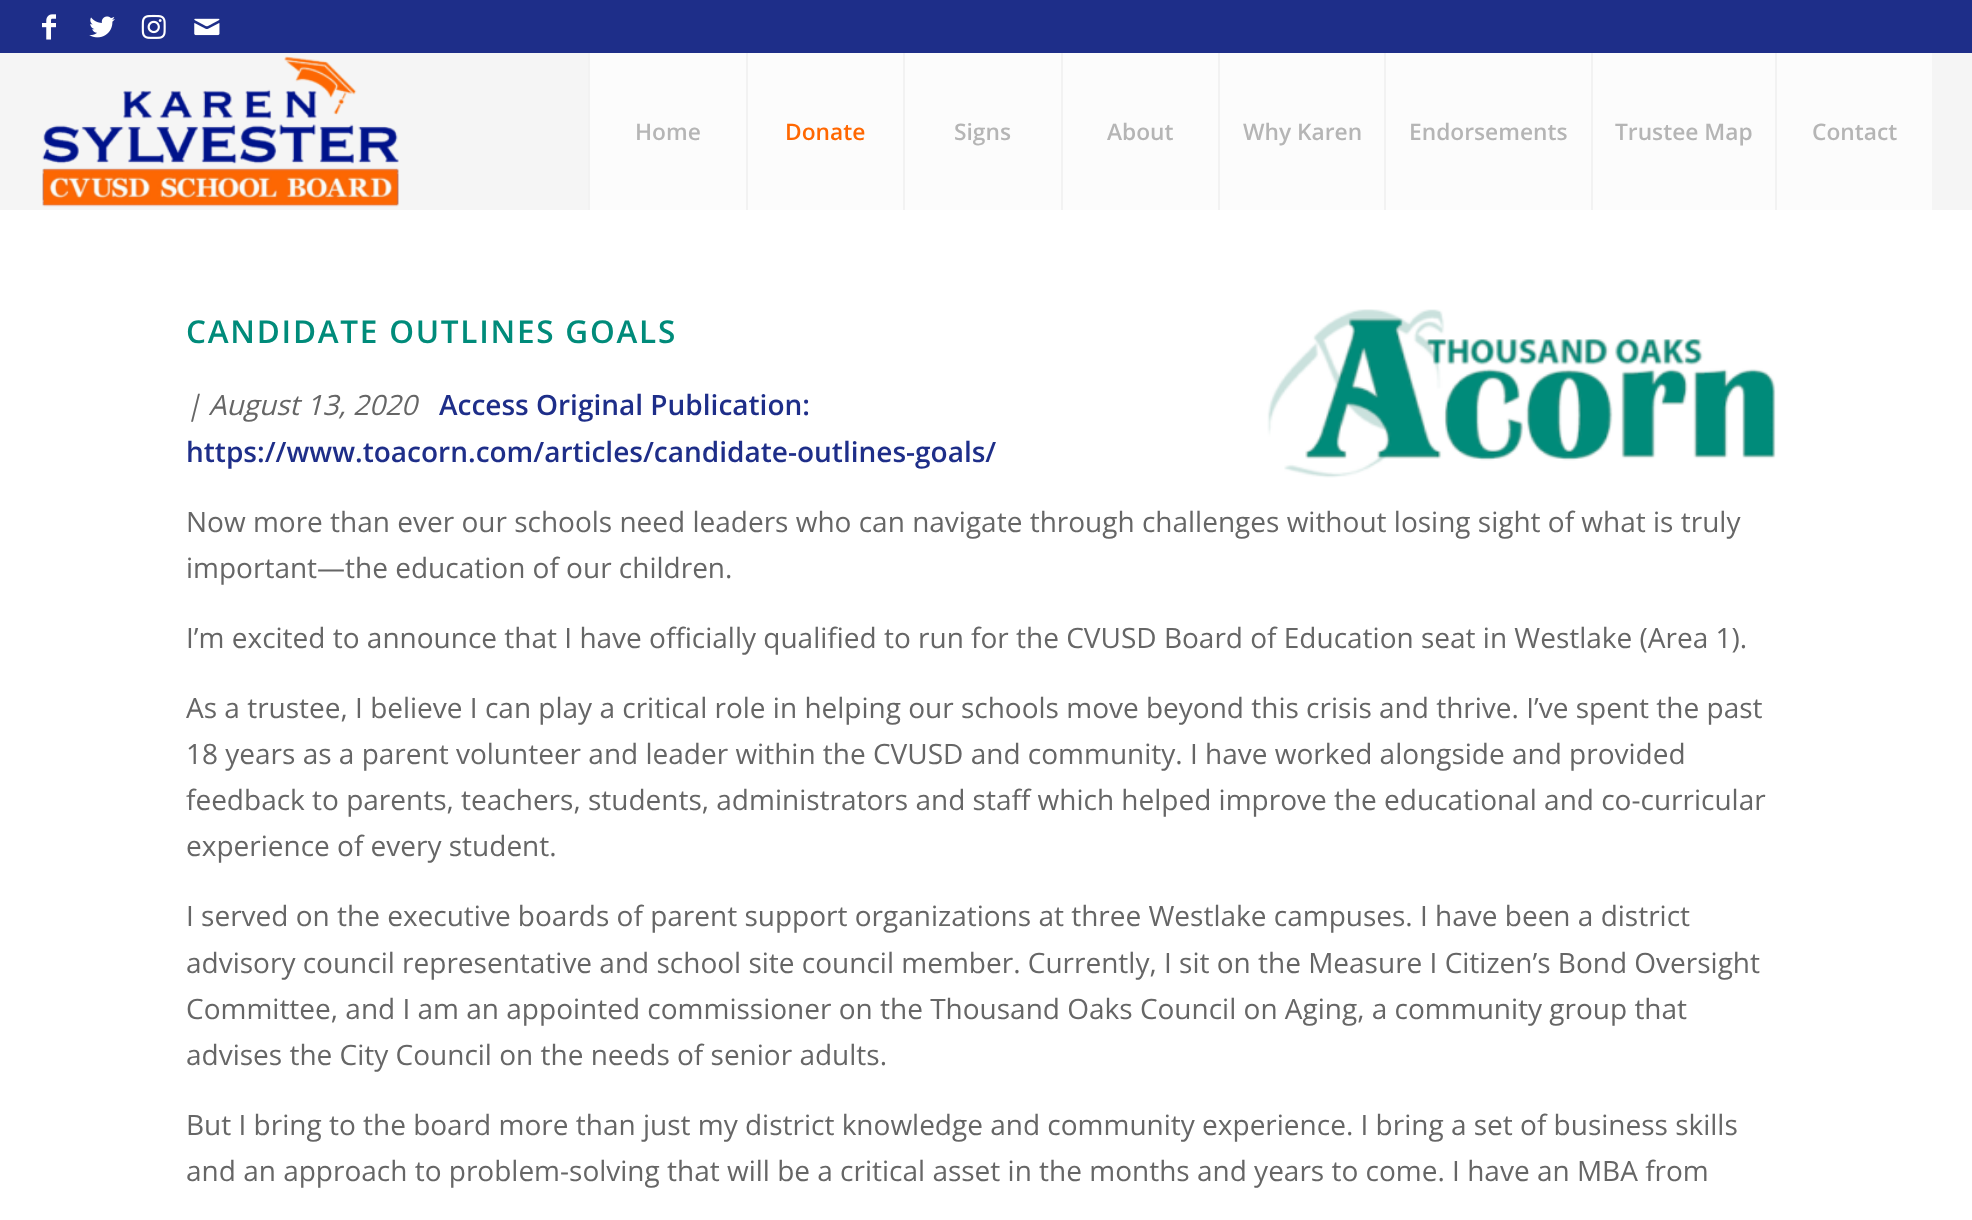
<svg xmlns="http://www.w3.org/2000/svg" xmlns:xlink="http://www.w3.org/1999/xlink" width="1972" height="1220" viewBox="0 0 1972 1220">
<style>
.cls-1{font:600 22.75px Open Sans;fill:#b5b5b5}
.cls-2{font:600 22.75px Open Sans;fill:#ff6701}
.cls-3{font:600 31.5px Open Sans;letter-spacing:1.75px;fill:#008b7a}
.cls-4{font:italic 28px Open Sans;fill:#666666}
.cls-5{font:600 28px Open Sans;fill:#1e2e89}
.cls-6{font:28px Open Sans;fill:#666666}
</style>
<rect width="100%" height="100%" fill="#ffffff"/>
<rect fill="#1e2e89" x="0" y="0" width="1972" height="53"/>
<image xlink:href="image0.png" x="42" y="14" width="14" height="26"/>
<image xlink:href="image1.png" x="89" y="16" width="26" height="22"/>
<image xlink:href="image2.png" x="141" y="14" width="25" height="25"/>
<image xlink:href="image3.png" x="194" y="18" width="26" height="18"/>
<rect fill="#f5f5f5" x="0" y="53" width="1972" height="157"/>
<image xlink:href="image4.png" x="42" y="56" width="357" height="151"/>
<rect fill="#fcfcfc" x="590" y="53" width="156" height="157"/>
<rect fill="#f2f2f2" x="588" y="53" width="2" height="157"/>
<rect fill="#fcfcfc" x="748" y="53" width="155" height="157"/>
<rect fill="#f2f2f2" x="746" y="53" width="2" height="157"/>
<rect fill="#fcfcfc" x="905" y="53" width="156" height="157"/>
<rect fill="#f2f2f2" x="903" y="53" width="2" height="157"/>
<rect fill="#fcfcfc" x="1063" y="53" width="155" height="157"/>
<rect fill="#f2f2f2" x="1061" y="53" width="2" height="157"/>
<rect fill="#fcfcfc" x="1220" y="53" width="164" height="157"/>
<rect fill="#f2f2f2" x="1218" y="53" width="2" height="157"/>
<rect fill="#fcfcfc" x="1386" y="53" width="205" height="157"/>
<rect fill="#f2f2f2" x="1384" y="53" width="2" height="157"/>
<rect fill="#fcfcfc" x="1593" y="53" width="182" height="157"/>
<rect fill="#f2f2f2" x="1591" y="53" width="2" height="157"/>
<rect fill="#fcfcfc" x="1777" y="53" width="155" height="157"/>
<rect fill="#f2f2f2" x="1775" y="53" width="2" height="157"/>
<image xlink:href="image5.png" x="1267" y="309" width="509" height="169"/>
<text class="cls-1" x="635" y="140">Home</text>
<text class="cls-2" x="785" y="140">Donate</text>
<text class="cls-1" x="954" y="140">Signs</text>
<text class="cls-1" x="1107" y="140">About</text>
<text class="cls-1" x="1243" y="140">Why Karen</text>
<text class="cls-1" x="1409" y="140">Endorsements</text>
<text class="cls-1" x="1615" y="140">Trustee Map</text>
<text class="cls-1" x="1812" y="140">Contact</text>
<text class="cls-3" x="186" y="343">CANDIDATE OUTLINES GOALS</text>
<text class="cls-4" x="186" y="415">| August 13, 2020</text>
<text class="cls-5" x="439" y="415">Access Original Publication:</text>
<text class="cls-5" x="186" y="462">https://www.toacorn.com/articles/candidate-outlines-goals/</text>
<text class="cls-6"><tspan x="186" y="532">Now more than ever our schools need leaders who can navigate through challenges without losing sight of what is truly</tspan><tspan x="186" y="578">important—the education of our children.</tspan></text>
<text class="cls-6" x="186" y="648">I’m excited to announce that I have officially qualified to run for the CVUSD Board of Education seat in Westlake (Area 1).</text>
<text class="cls-6"><tspan x="186" y="718">As a trustee, I believe I can play a critical role in helping our schools move beyond this crisis and thrive. I’ve spent the past</tspan><tspan x="186" y="764">18 years as a parent volunteer and leader within the CVUSD and community. I have worked alongside and provided</tspan><tspan x="186" y="810">feedback to parents, teachers, students, administrators and staff which helped improve the educational and co-curricular</tspan><tspan x="186" y="856">experience of every student.</tspan></text>
<text class="cls-6"><tspan x="186" y="926">I served on the executive boards of parent support organizations at three Westlake campuses. I have been a district</tspan><tspan x="186" y="973">advisory council representative and school site council member. Currently, I sit on the Measure I Citizen’s Bond Oversight</tspan><tspan x="186" y="1019">Committee, and I am an appointed commissioner on the Thousand Oaks Council on Aging, a community group that</tspan><tspan x="186" y="1065">advises the City Council on the needs of senior adults.</tspan></text>
<text class="cls-6"><tspan x="186" y="1135">But I bring to the board more than just my district knowledge and community experience. I bring a set of business skills</tspan><tspan x="186" y="1181">and an approach to problem-solving that will be a critical asset in the months and years to come. I have an MBA from</tspan></text>
</svg>
